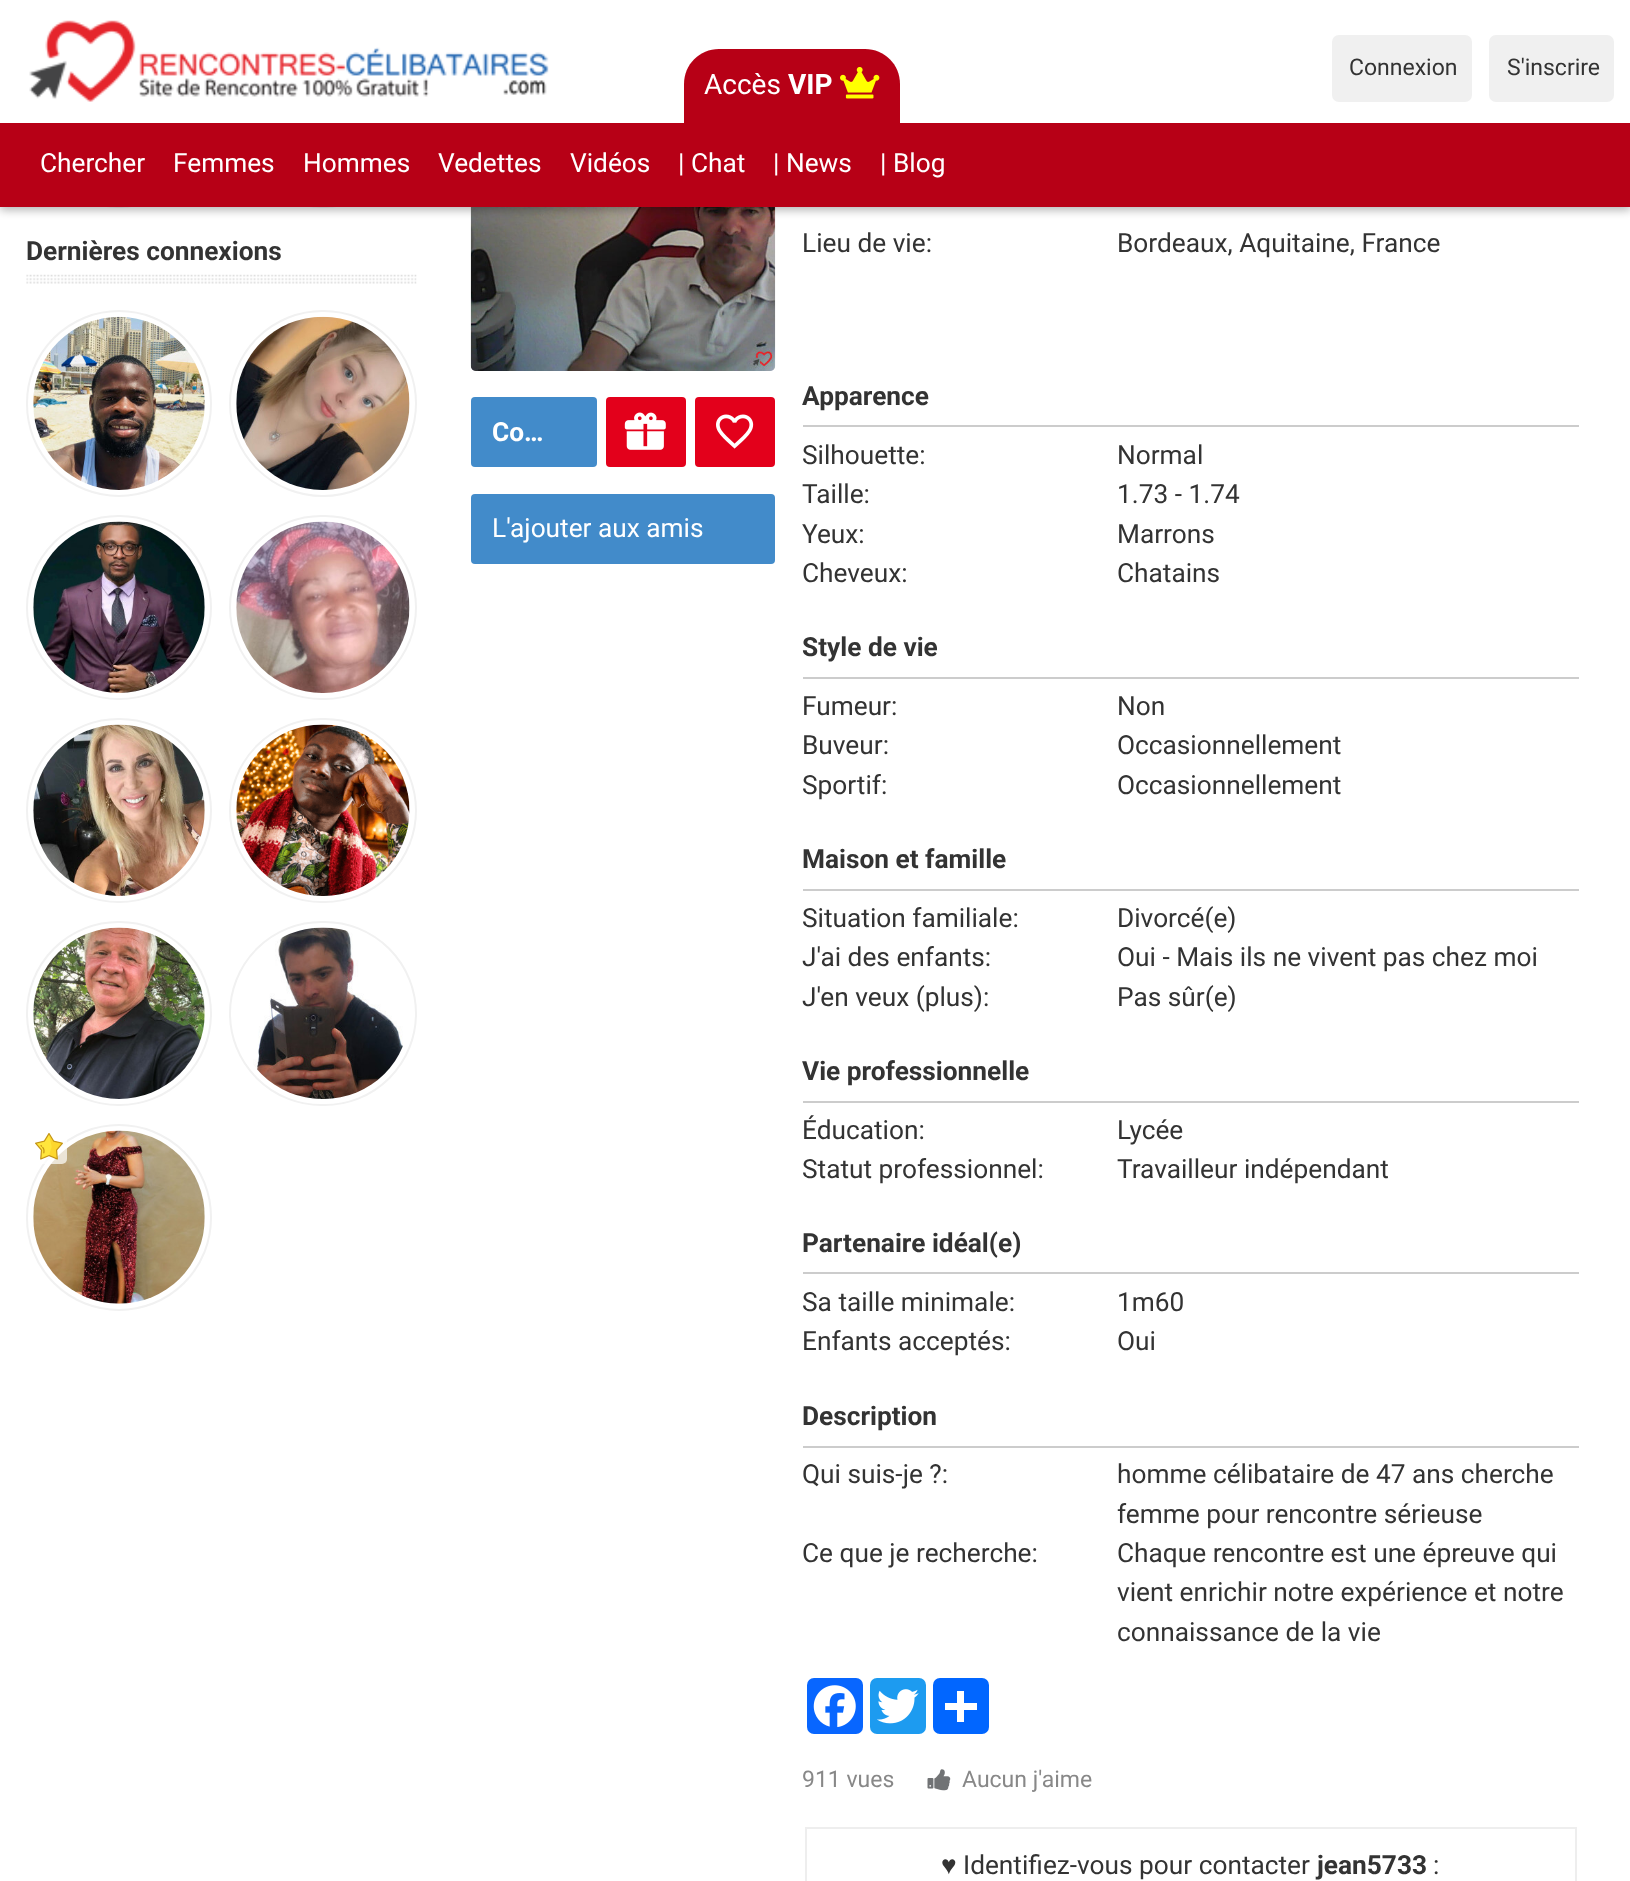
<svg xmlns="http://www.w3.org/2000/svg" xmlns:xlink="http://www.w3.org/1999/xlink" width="1630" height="1881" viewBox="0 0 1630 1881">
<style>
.cls-1{font:23px Roboto;fill:#333333}
.cls-2{font:26.25px Roboto;fill:#ffffff}
.cls-3{font:28px Roboto;fill:#ffffff}
.cls-4{font:bold 28px Roboto;fill:#ffffff}
.cls-5{font:bold 26.25px Roboto;fill:#333333}
.cls-6{font:bold 26.25px Roboto;fill:#ffffff}
.cls-7{font:26.25px Roboto;fill:#333333}
.cls-8{font:23px Roboto;fill:#888888}
.cls-9{font:26.25px Liberation Sans;fill:#333333}
</style>
<rect width="100%" height="100%" fill="#ffffff"/>
<rect fill="none" stroke="#f1f1f1" stroke-width="2" x="27" y="24" width="184" height="183" rx="91.5"/>
<rect fill="none" stroke="#f1f1f1" stroke-width="2" x="230" y="24" width="186" height="183" rx="91.5"/>
<image xlink:href="image13.png" x="470" y="207" width="306" height="164"/>
<rect fill="#000000" fill-opacity="0.3" filter="blur(5px)" x="0" y="4" width="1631" height="206"/>
<rect fill="#b70016" x="0" y="123" width="1630" height="84"/>
<rect fill="#ffffff" x="0" y="0" width="1630" height="123"/>
<rect fill="#f0f0f0" x="1332" y="35" width="140" height="67" rx="7"/>
<rect fill="#f0f0f0" x="1489" y="35" width="125" height="67" rx="7"/>
<image xlink:href="image0.png" x="29" y="20" width="520" height="82"/>
<path fill="#b70016" d="M719 49H865C884.5 49 900 64.5 900 84V123H684V84C684 64.5 699.5 49 719 49Z"/>
<image xlink:href="image1.png" x="840" y="67" width="40" height="32"/>
<image xlink:href="image2.png" x="26" y="274" width="391" height="10"/>
<rect fill="none" stroke="#f1f1f1" stroke-width="2" x="27" y="311" width="184" height="185" rx="92"/>
<image xlink:href="image3.png" x="33" y="316" width="172" height="174"/>
<rect fill="none" stroke="#f1f1f1" stroke-width="2" x="230" y="311" width="186" height="185" rx="92.5"/>
<image xlink:href="image4.png" x="236" y="316" width="174" height="174"/>
<rect fill="none" stroke="#f1f1f1" stroke-width="2" x="27" y="516" width="184" height="183" rx="91.5"/>
<image xlink:href="image5.png" x="33" y="521" width="172" height="172"/>
<rect fill="none" stroke="#f1f1f1" stroke-width="2" x="230" y="516" width="186" height="183" rx="91.5"/>
<image xlink:href="image6.png" x="236" y="521" width="174" height="172"/>
<rect fill="none" stroke="#f1f1f1" stroke-width="2" x="27" y="719" width="184" height="183" rx="91.5"/>
<image xlink:href="image7.png" x="33" y="724" width="172" height="172"/>
<rect fill="none" stroke="#f1f1f1" stroke-width="2" x="230" y="719" width="186" height="183" rx="91.5"/>
<image xlink:href="image8.png" x="236" y="724" width="174" height="172"/>
<rect fill="none" stroke="#f1f1f1" stroke-width="2" x="27" y="922" width="184" height="183" rx="91.5"/>
<image xlink:href="image9.png" x="33" y="927" width="172" height="172"/>
<rect fill="none" stroke="#f1f1f1" stroke-width="2" x="230" y="922" width="186" height="183" rx="91.5"/>
<image xlink:href="image10.png" x="253" y="927" width="150" height="172"/>
<rect fill="none" stroke="#f1f1f1" stroke-width="2" x="27" y="1125" width="184" height="185" rx="92"/>
<image xlink:href="image12.png" x="33" y="1130" width="172" height="174"/>
<rect fill="#ffffff" fill-opacity="0.7" x="32" y="1129" width="35" height="35" rx="5"/>
<image xlink:href="image11.png" x="35" y="1133" width="28" height="27"/>
<rect fill="#428bca" x="471" y="397" width="126" height="70" rx="4"/>
<rect fill="#e3001b" x="606" y="397" width="80" height="70" rx="4"/>
<image xlink:href="image14.png" x="624" y="412" width="42" height="38"/>
<rect fill="#e3001b" x="695" y="397" width="80" height="70" rx="4"/>
<image xlink:href="image15.png" x="716" y="414" width="38" height="35"/>
<rect fill="#428bca" x="471" y="494" width="304" height="70" rx="4"/>
<rect fill="#cccccc" x="803" y="425" width="776" height="2"/>
<rect fill="#cccccc" x="803" y="677" width="776" height="2"/>
<rect fill="#cccccc" x="803" y="889" width="776" height="2"/>
<rect fill="#cccccc" x="803" y="1101" width="776" height="2"/>
<rect fill="#cccccc" x="803" y="1272" width="776" height="2"/>
<rect fill="#cccccc" x="803" y="1446" width="776" height="2"/>
<rect fill="#0866ff" x="807" y="1678" width="56" height="56" rx="7"/>
<image xlink:href="image16.png" x="813" y="1685" width="43" height="43"/>
<rect fill="#1d9bf0" x="870" y="1678" width="56" height="56" rx="7"/>
<image xlink:href="image17.png" x="877" y="1689" width="42" height="35"/>
<rect fill="#0166ff" x="933" y="1678" width="56" height="56" rx="7"/>
<rect fill="#ffffff" x="957" y="1691" width="7" height="31"/>
<rect fill="#ffffff" x="945" y="1703" width="32" height="7"/>
<image xlink:href="image18.png" x="927" y="1769" width="24" height="22"/>
<rect fill="none" stroke="#eeeeee" stroke-width="2" x="806" y="1828" width="770" height="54"/>
<text class="cls-1" x="1349" y="75">Connexion</text>
<text class="cls-1" x="1507" y="75">S'inscrire</text>
<text class="cls-2" x="40" y="172">Chercher</text>
<text class="cls-2" x="173" y="172">Femmes</text>
<text class="cls-2" x="303" y="172">Hommes</text>
<text class="cls-2" x="438" y="172">Vedettes</text>
<text class="cls-2" x="570" y="172">Vidéos</text>
<text class="cls-2" x="678" y="172">| Chat</text>
<text class="cls-2" x="773" y="172">| News</text>
<text class="cls-2" x="880" y="172">| Blog</text>
<text class="cls-3" x="704" y="94">Accès</text>
<text class="cls-4" x="788" y="94">VIP</text>
<text class="cls-5" x="26" y="260">Dernières connexions</text>
<text class="cls-6" x="492" y="441">Co…</text>
<text class="cls-2" x="492" y="537">L'ajouter aux amis</text>
<text class="cls-7" x="802" y="252">Lieu de vie:</text>
<text class="cls-7" x="1117" y="252">Bordeaux, Aquitaine, France</text>
<text class="cls-5" x="802" y="405">Apparence</text>
<text class="cls-7" x="802" y="464">Silhouette:</text>
<text class="cls-7" x="1117" y="464">Normal</text>
<text class="cls-7" x="802" y="503">Taille:</text>
<text class="cls-7" x="1117" y="503">1.73 - 1.74</text>
<text class="cls-7" x="802" y="543">Yeux:</text>
<text class="cls-7" x="1117" y="543">Marrons</text>
<text class="cls-7" x="802" y="582">Cheveux:</text>
<text class="cls-7" x="1117" y="582">Chatains</text>
<text class="cls-5" x="802" y="656">Style de vie</text>
<text class="cls-7" x="802" y="715">Fumeur:</text>
<text class="cls-7" x="1117" y="715">Non</text>
<text class="cls-7" x="802" y="754">Buveur:</text>
<text class="cls-7" x="1117" y="754">Occasionnellement</text>
<text class="cls-7" x="802" y="794">Sportif:</text>
<text class="cls-7" x="1117" y="794">Occasionnellement</text>
<text class="cls-5" x="802" y="868">Maison et famille</text>
<text class="cls-7" x="802" y="927">Situation familiale:</text>
<text class="cls-7" x="1117" y="927">Divorcé(e)</text>
<text class="cls-7" x="802" y="966">J'ai des enfants:</text>
<text class="cls-7" x="1117" y="966">Oui - Mais ils ne vivent pas chez moi</text>
<text class="cls-7" x="802" y="1006">J'en veux (plus):</text>
<text class="cls-7" x="1117" y="1006">Pas sûr(e)</text>
<text class="cls-5" x="802" y="1080">Vie professionnelle</text>
<text class="cls-7" x="802" y="1139">Éducation:</text>
<text class="cls-7" x="1117" y="1139">Lycée</text>
<text class="cls-7" x="802" y="1178">Statut professionnel:</text>
<text class="cls-7" x="1117" y="1178">Travailleur indépendant</text>
<text class="cls-5" x="802" y="1252">Partenaire idéal(e)</text>
<text class="cls-7" x="802" y="1311">Sa taille minimale:</text>
<text class="cls-7" x="1117" y="1311">1m60</text>
<text class="cls-7" x="802" y="1350">Enfants acceptés:</text>
<text class="cls-7" x="1117" y="1350">Oui</text>
<text class="cls-5" x="802" y="1425">Description</text>
<text class="cls-7" x="802" y="1483">Qui suis-je ?:</text>
<text class="cls-7"><tspan x="1117" y="1483">homme célibataire de 47 ans cherche</tspan><tspan x="1117" y="1523">femme pour rencontre sérieuse</tspan></text>
<text class="cls-7" x="802" y="1562">Ce que je recherche:</text>
<text class="cls-7"><tspan x="1117" y="1562">Chaque rencontre est une épreuve qui</tspan><tspan x="1117" y="1601">vient enrichir notre expérience et notre</tspan><tspan x="1117" y="1641">connaissance de la vie</tspan></text>
<text class="cls-8" x="802" y="1787">911 vues</text>
<text class="cls-8" x="962" y="1787">Aucun j'aime</text>
<text class="cls-9" x="941" y="1874">♥</text>
<text class="cls-7" x="963" y="1874">Identifiez-vous pour contacter</text>
<text class="cls-5" x="1317" y="1874">jean5733</text>
<text class="cls-7" x="1433" y="1874">:</text>
</svg>
